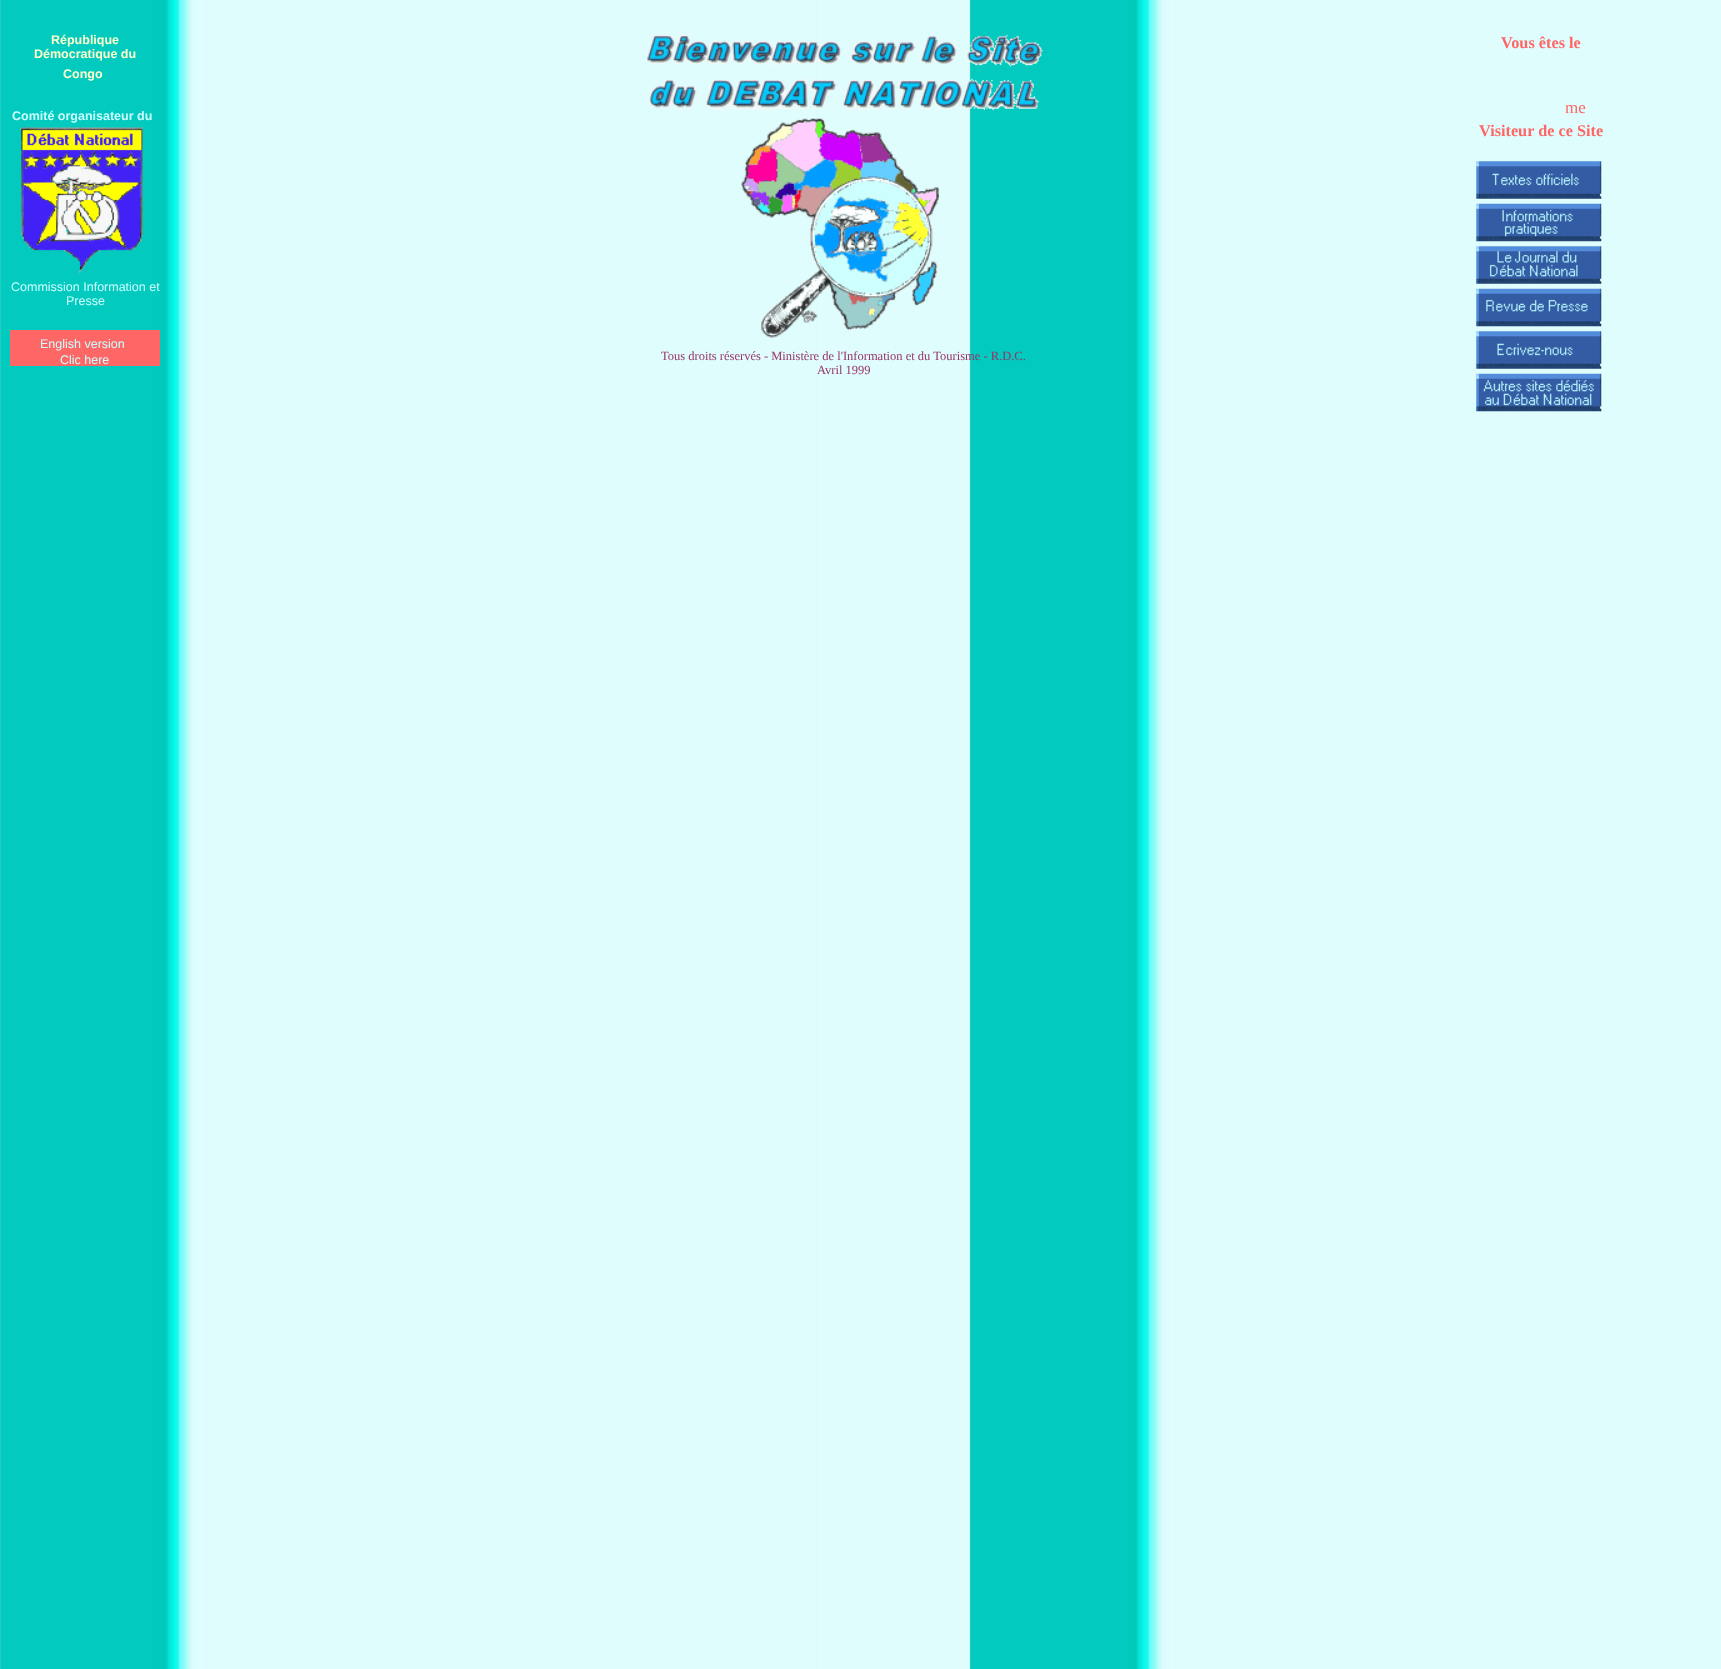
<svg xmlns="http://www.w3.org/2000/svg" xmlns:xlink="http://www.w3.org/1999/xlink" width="1721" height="1669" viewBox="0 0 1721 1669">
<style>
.cls-1{font:bold 12.5px Liberation Sans;fill:#ffffcc}
.cls-2{font:bold 12.5px Liberation Sans;fill:#ccffff}
.cls-3{font:12.5px Liberation Sans;fill:#ccffff}
.cls-4{font:bold 16.25px Liberation Serif;fill:#ff6666}
.cls-5{font:17px Liberation Serif;fill:#ff6666}
.cls-6{font:12.5px Liberation Serif;fill:#993366}
</style>
<rect width="100%" height="100%" fill="#ffffff"/>
<image xlink:href="image0.png" x="0" y="0" width="1721" height="1669"/>
<image xlink:href="image1.png" x="19" y="127" width="124" height="146"/>
<rect fill="#ff6666" x="10" y="330" width="150" height="36"/>
<image xlink:href="image2.png" x="1476" y="161" width="126" height="38"/>
<image xlink:href="image3.png" x="1476" y="203" width="126" height="39"/>
<image xlink:href="image4.png" x="1476" y="246" width="126" height="38"/>
<image xlink:href="image5.png" x="1476" y="288" width="126" height="39"/>
<image xlink:href="image6.png" x="1476" y="331" width="126" height="38"/>
<image xlink:href="image7.png" x="1476" y="373" width="126" height="39"/>
<image xlink:href="image8.png" x="646" y="33" width="397" height="77"/>
<image xlink:href="image9.png" x="741" y="118" width="198" height="220"/>
<text class="cls-1" x="51" y="44">République</text>
<text class="cls-1" x="34" y="58">Démocratique du</text>
<text class="cls-1" x="63" y="78">Congo</text>
<text class="cls-2" x="12" y="120">Comité organisateur du</text>
<text class="cls-3" x="11" y="291">Commission Information et</text>
<text class="cls-3" x="66" y="305">Presse</text>
<text class="cls-3" x="40" y="348">English version</text>
<text class="cls-3" x="60" y="364">Clic here</text>
<text class="cls-4" x="1501" y="48">Vous êtes le</text>
<text class="cls-5" x="1565" y="113">me</text>
<text class="cls-4" x="1479" y="136">Visiteur de ce Site</text>
<text class="cls-6" x="661" y="360">Tous droits réservés - Ministère de l'Information et du Tourisme - R.D.C.</text>
<text class="cls-6" x="817" y="374">Avril 1999</text>
</svg>
